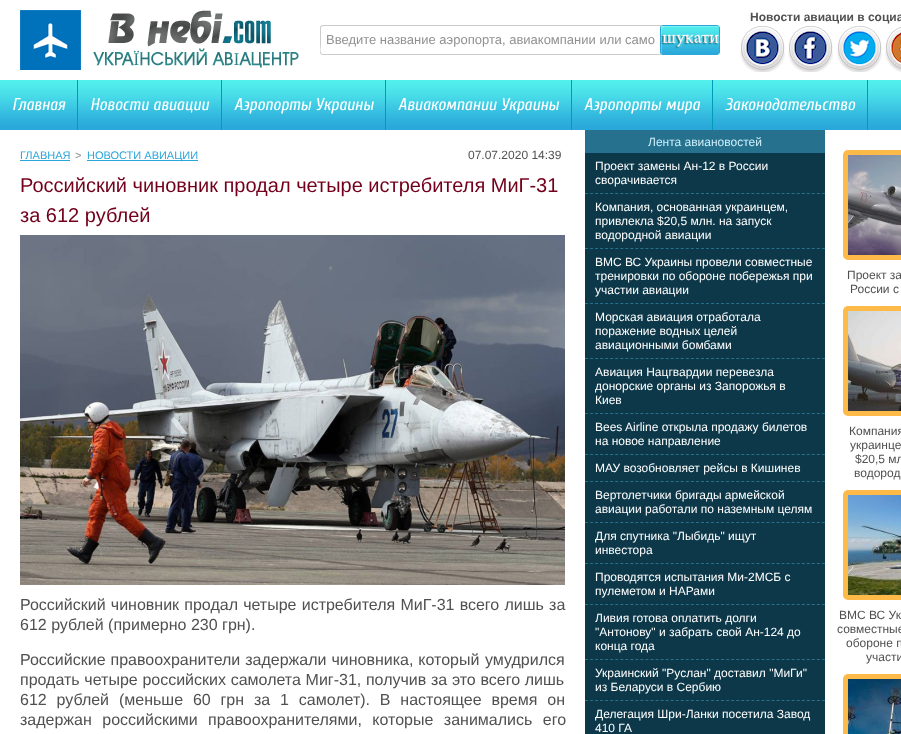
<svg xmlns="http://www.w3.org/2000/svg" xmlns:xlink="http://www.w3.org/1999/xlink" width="901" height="734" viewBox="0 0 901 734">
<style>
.cls-1{font:bold 12px Liberation Sans;fill:#505050}
.cls-2{font:13px Liberation Sans;fill:#909090}
.cls-3{font:italic 17px Cuprum;fill:#ffffff}
.cls-4{font:11px Liberation Sans;fill:#29a6da}
.cls-5{font:11px Liberation Sans;fill:#909090}
.cls-6{font:12px Liberation Sans;fill:#505050}
.cls-7{font:20px Liberation Sans;fill:#72001a}
.cls-8{font:16px Liberation Sans;fill:#505050}
.cls-9{font:12px Liberation Sans;fill:#cceffc}
.cls-10{font:12px Liberation Sans;fill:#ffffff}
</style>
<rect width="100%" height="100%" fill="#ffffff"/>
<image xlink:href="image0.png" x="20" y="10" width="279" height="60"/>
<image xlink:href="image1.png" x="740" y="26" width="45" height="46"/>
<image xlink:href="image2.png" x="788" y="26" width="45" height="46"/>
<image xlink:href="image3.png" x="837" y="26" width="45" height="46"/>
<image xlink:href="image4.png" x="885" y="27" width="16" height="45"/>
<path fill="#cccccc" fill-rule="evenodd" d="M323 25H661V55H323C321 55 320 54 320 52V28C320 26 321 25 323 25ZM323 26H661V54H323C319 54 321 46 321 44V27Z"/>
<image xlink:href="image5.png" x="660" y="25" width="60" height="30"/>
<image xlink:href="image6.png" x="0" y="80" width="901" height="50"/>
<rect fill="#009bb7" x="77" y="80" width="1" height="50"/>
<rect fill="#009bb7" x="221" y="80" width="1" height="50"/>
<rect fill="#009bb7" x="385" y="80" width="1" height="50"/>
<rect fill="#009bb7" x="571" y="80" width="1" height="50"/>
<rect fill="#009bb7" x="712" y="80" width="1" height="50"/>
<rect fill="#009bb7" x="867" y="80" width="1" height="50"/>
<rect fill="#0d3849" x="585" y="153" width="240" height="581"/>
<rect fill="#29a6da" x="20" y="160" width="50" height="1"/>
<rect fill="#29a6da" x="87" y="160" width="111" height="1"/>
<image xlink:href="image7.png" x="20" y="235" width="545" height="350"/>
<rect fill="#26718e" x="585" y="130" width="240" height="23"/>
<path fill="none" stroke="#26718e" stroke-dasharray="3 2.04" d="M585 193.5H825"/>
<path fill="none" stroke="#26718e" stroke-dasharray="3 2.04" d="M585 248.5H825"/>
<path fill="none" stroke="#26718e" stroke-dasharray="3 2.04" d="M585 303.5H825"/>
<path fill="none" stroke="#26718e" stroke-dasharray="3 2.04" d="M585 358.5H825"/>
<path fill="none" stroke="#26718e" stroke-dasharray="3 2.04" d="M585 413.5H825"/>
<path fill="none" stroke="#26718e" stroke-dasharray="3 2.04" d="M585 454.5H825"/>
<path fill="none" stroke="#26718e" stroke-dasharray="3 2.04" d="M585 481.5H825"/>
<path fill="none" stroke="#26718e" stroke-dasharray="3 2.04" d="M585 522.5H825"/>
<path fill="none" stroke="#26718e" stroke-dasharray="3 2.04" d="M585 563.5H825"/>
<path fill="none" stroke="#26718e" stroke-dasharray="3 2.04" d="M585 604.5H825"/>
<path fill="none" stroke="#26718e" stroke-dasharray="3 2.04" d="M585 659.5H825"/>
<path fill="none" stroke="#26718e" stroke-dasharray="3 2.04" d="M585 700.5H825"/>
<rect fill="none" stroke="#fdba48" stroke-width="5" x="845.5" y="152.5" width="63" height="105" rx="2.5"/>
<image xlink:href="image8.png" x="848" y="155" width="53" height="100"/>
<rect fill="none" stroke="#fdba48" stroke-width="5" x="845.5" y="308.5" width="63" height="105" rx="2.5"/>
<image xlink:href="image9.png" x="848" y="311" width="53" height="100"/>
<rect fill="none" stroke="#fdba48" stroke-width="5" x="845.5" y="492.5" width="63" height="105" rx="2.5"/>
<image xlink:href="image10.png" x="848" y="495" width="53" height="100"/>
<rect fill="none" stroke="#fdba48" stroke-width="5" x="845.5" y="676.5" width="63" height="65" rx="2.5"/>
<image xlink:href="image11.png" x="848" y="679" width="53" height="55"/>
<text class="cls-1" x="750" y="21">Новости авиации в социа</text>
<text class="cls-2" x="326" y="44">Введите название аэропорта, авиакомпании или само</text>
<text class="cls-3" x="12" y="110">Главная</text>
<text class="cls-3" x="90" y="110">Новости авиации</text>
<text class="cls-3" x="234" y="110">Аэропорты Украины</text>
<text class="cls-3" x="398" y="110">Авиакомпании Украины</text>
<text class="cls-3" x="584" y="110">Аэропорты мира</text>
<text class="cls-3" x="725" y="110">Законодательство</text>
<text class="cls-4" x="20" y="159">ГЛАВНАЯ</text>
<text class="cls-5" x="75" y="159">&gt;</text>
<text class="cls-4" x="87" y="159">НОВОСТИ АВИАЦИИ</text>
<text class="cls-6" x="468" y="159">07.07.2020 14:39</text>
<text class="cls-7"><tspan x="20" y="192">Российский чиновник продал четыре истребителя МиГ-31</tspan><tspan x="20" y="222">за 612 рублей</tspan></text>
<text class="cls-8"><tspan x="20" y="610" word-spacing="0.75">Российский чиновник продал четыре истребителя МиГ-31 всего лишь за</tspan><tspan x="20" y="630">612 рублей (примерно 230 грн).</tspan></text>
<text class="cls-8" x="20" y="665" word-spacing="0.5">Российские правоохранители задержали чиновника, который</text>
<text class="cls-8" x="485" y="665">умудрился</text>
<text class="cls-8"><tspan x="20" y="685" word-spacing="0.25">продать четыре российских самолета Миг-31, получив за это всего лишь</tspan><tspan x="20" y="705" word-spacing="5.4">612 рублей (меньше 60 грн за 1 самолет). В настоящее время он</tspan><tspan x="20" y="725" word-spacing="6">задержан российскими</tspan></text>
<text class="cls-8" x="208" y="725" word-spacing="6">правоохранителями, которые занимались его</text>
<text class="cls-9" x="648" y="146">Лента авиановостей</text>
<text class="cls-10"><tspan x="595" y="170">Проект замены Ан-12 в России</tspan><tspan x="595" y="184">сворачивается</tspan></text>
<text class="cls-10"><tspan x="595" y="211">Компания, основанная украинцем,</tspan><tspan x="595" y="225">привлекла $20,5 млн. на запуск</tspan><tspan x="595" y="239">водородной авиации</tspan></text>
<text class="cls-10"><tspan x="595" y="266">ВМС ВС Украины провели совместные</tspan><tspan x="595" y="280">тренировки по обороне побережья при</tspan><tspan x="595" y="294">участии авиации</tspan></text>
<text class="cls-10"><tspan x="595" y="321">Морская авиация отработала</tspan><tspan x="595" y="335">поражение водных целей</tspan><tspan x="595" y="349">авиационными бомбами</tspan></text>
<text class="cls-10"><tspan x="595" y="376">Авиация Нацгвардии перевезла</tspan><tspan x="595" y="390">донорские органы из Запорожья в</tspan><tspan x="595" y="404">Киев</tspan></text>
<text class="cls-10"><tspan x="595" y="431">Bees Airline открыла продажу билетов</tspan><tspan x="595" y="445">на новое направление</tspan></text>
<text class="cls-10" x="595" y="472">МАУ возобновляет рейсы в Кишинев</text>
<text class="cls-10"><tspan x="595" y="499">Вертолетчики бригады армейской</tspan><tspan x="595" y="513">авиации работали по наземным целям</tspan></text>
<text class="cls-10"><tspan x="595" y="540">Для спутника "Лыбидь" ищут</tspan><tspan x="595" y="554">инвестора</tspan></text>
<text class="cls-10"><tspan x="595" y="581">Проводятся испытания Ми-2МСБ с</tspan><tspan x="595" y="595">пулеметом и НАРами</tspan></text>
<text class="cls-10"><tspan x="595" y="622">Ливия готова оплатить долги</tspan><tspan x="595" y="636">"Антонову" и забрать свой Ан-124 до</tspan><tspan x="595" y="650">конца года</tspan></text>
<text class="cls-10"><tspan x="595" y="677">Украинский "Руслан" доставил "МиГи"</tspan><tspan x="595" y="691">из Беларуси в Сербию</tspan></text>
<text class="cls-10"><tspan x="595" y="718">Делегация Шри-Ланки посетила Завод</tspan><tspan x="595" y="732">410 ГА</tspan></text>
<text class="cls-6" x="847" y="279">Проект за</text>
<text class="cls-6" x="850" y="293">России с</text>
<text class="cls-6" x="849" y="435">Компания</text>
<text class="cls-6" x="850" y="449">украинце</text>
<text class="cls-6" x="855" y="463">$20,5 мл</text>
<text class="cls-6" x="854" y="477">водород</text>
<text class="cls-6" x="839" y="619">ВМС ВС Ук</text>
<text class="cls-6" x="837" y="633">совместные</text>
<text class="cls-6" x="846" y="647">обороне п</text>
<text class="cls-6" x="866" y="661">участи</text>
</svg>
